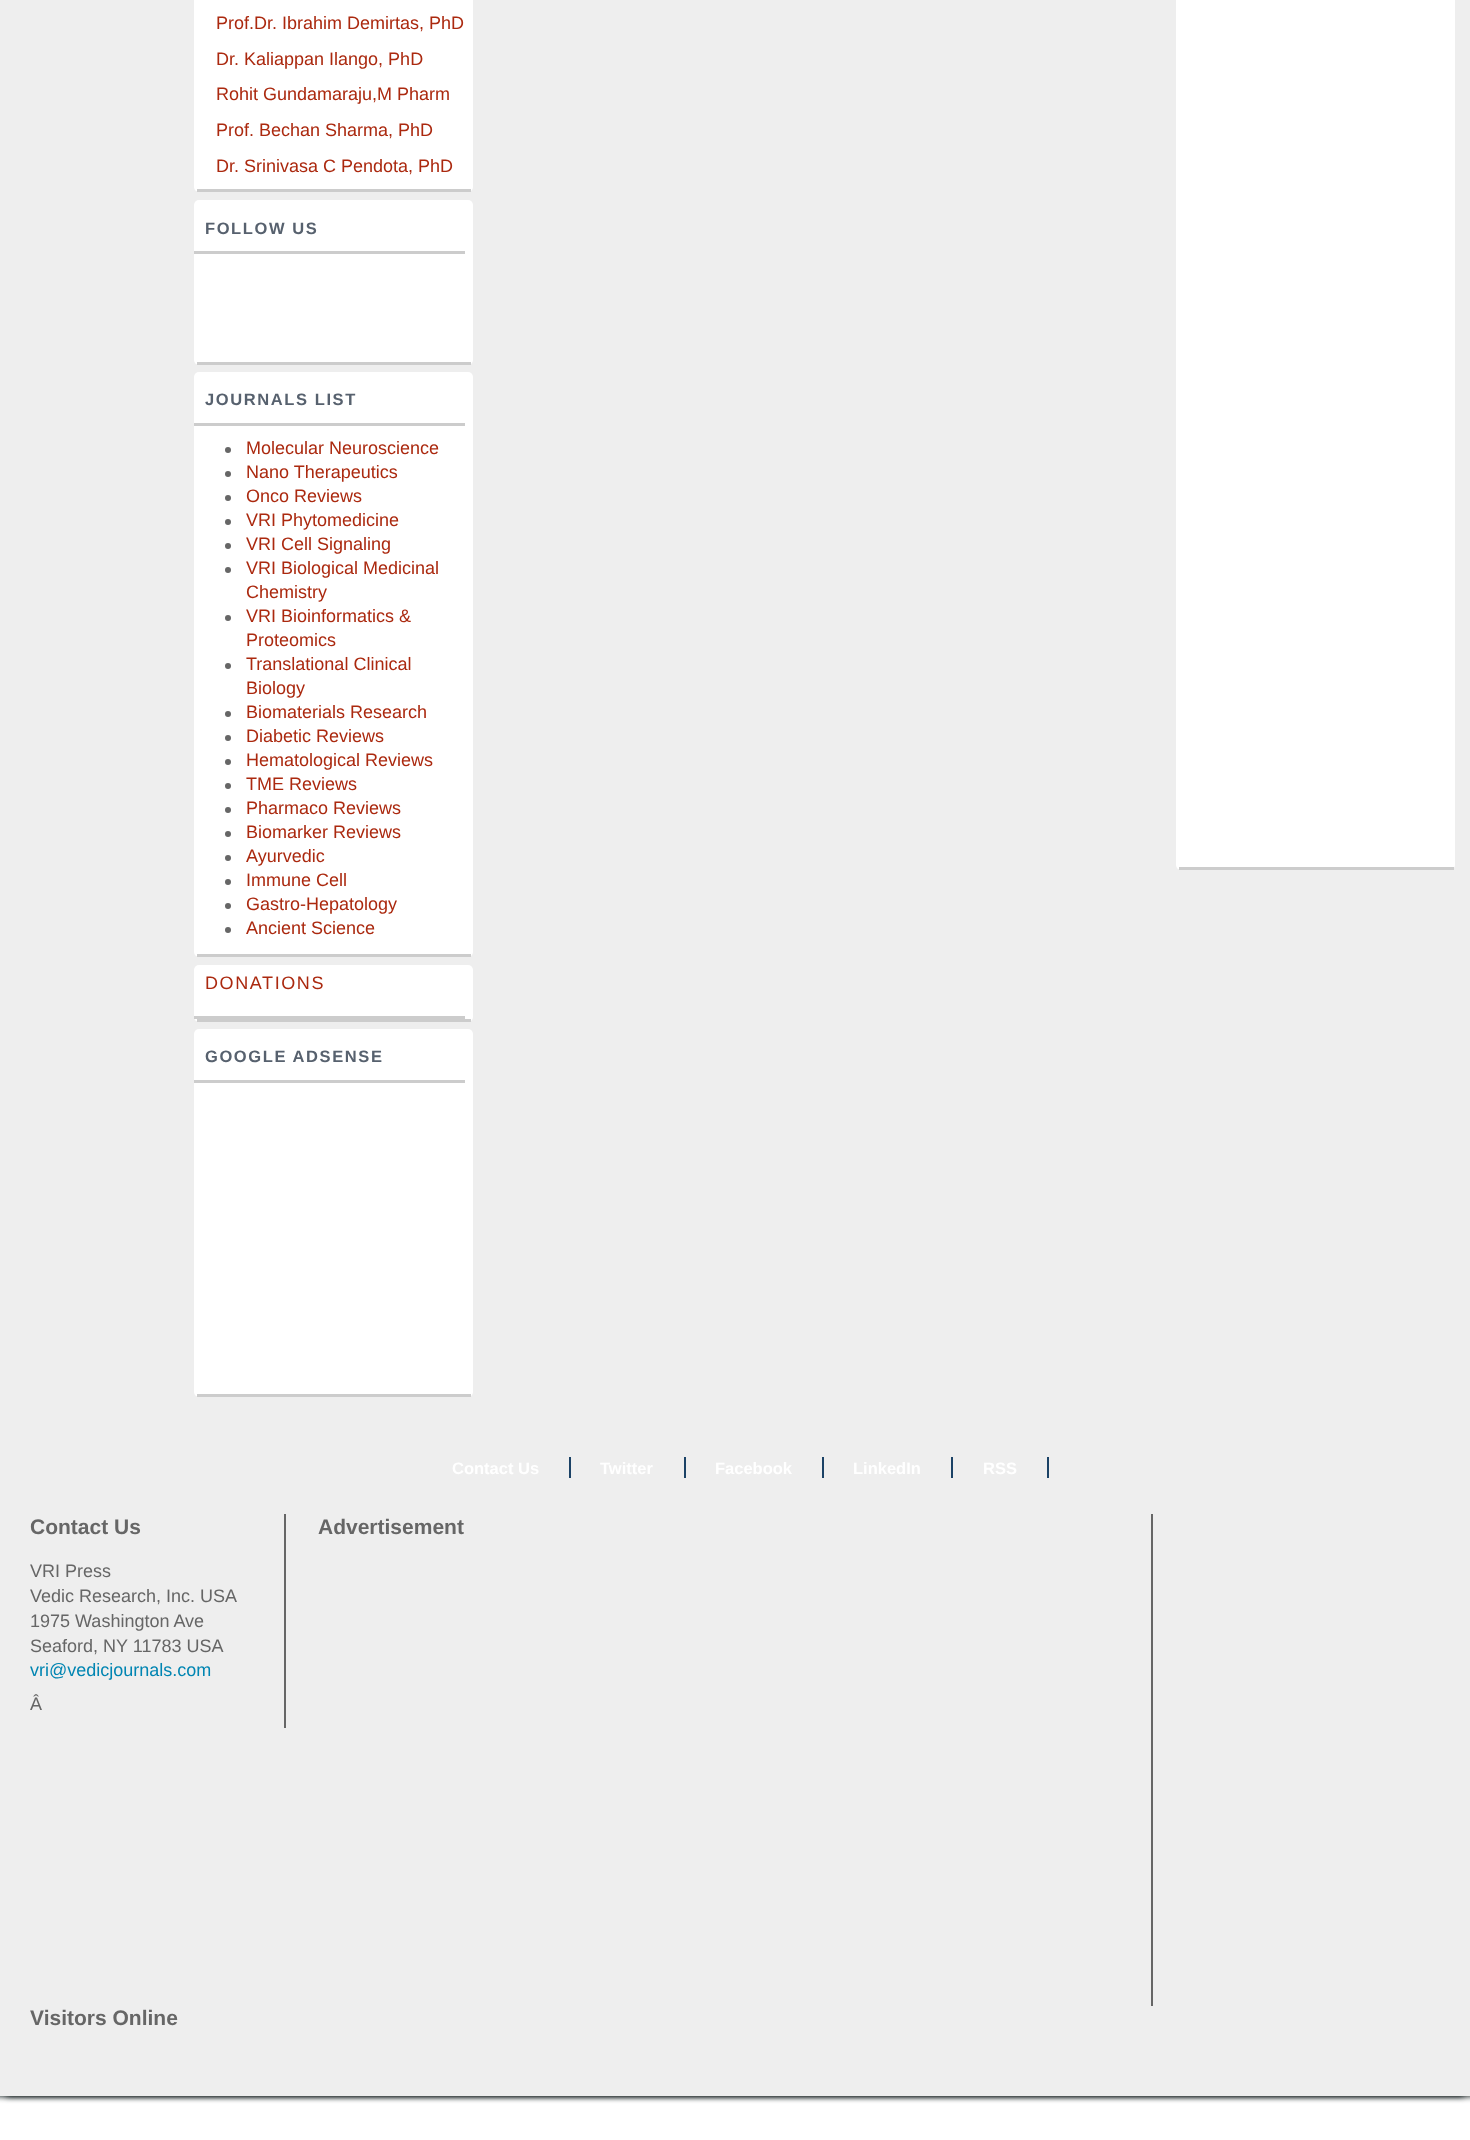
<svg xmlns="http://www.w3.org/2000/svg" xmlns:xlink="http://www.w3.org/1999/xlink" width="1470" height="2140" viewBox="0 0 1470 2140">
<style>
.cls-1{font:18px Liberation Sans;fill:#ab290f}
.cls-2{font:bold 16.5px Liberation Sans;letter-spacing:1.6px;fill:#57616e}
.cls-3{font:18px Liberation Sans;letter-spacing:1.6px;fill:#ab290f}
.cls-4{font:bold 16.5px Liberation Sans;fill:#ffffff}
.cls-5{font:bold 21px Liberation Sans;fill:#666666}
.cls-6{font:18px Liberation Sans;fill:#666666}
.cls-7{font:18px Liberation Sans;fill:#0085b2}
</style>
<rect width="100%" height="100%" fill="#ffffff"/>
<rect fill="#000d0e" filter="blur(3px)" x="-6" y="-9" width="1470" height="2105"/>
<rect fill="#000809" filter="blur(3px)" x="6" y="-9" width="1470" height="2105"/>
<rect fill="#eeeeee" x="0" y="0" width="1470" height="2096"/>
<rect fill="#ffffff" x="194" y="-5" width="279" height="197" rx="5"/>
<rect fill="#cccccc" x="197" y="189" width="274" height="3"/>
<rect fill="#ffffff" x="194" y="200" width="279" height="165" rx="5"/>
<rect fill="#cccccc" x="197" y="362" width="274" height="3"/>
<rect fill="#cccccc" x="194" y="251" width="271" height="3"/>
<rect fill="#ffffff" x="194" y="372" width="279" height="585" rx="5"/>
<rect fill="#cccccc" x="197" y="954" width="274" height="3"/>
<rect fill="#cccccc" x="194" y="423" width="271" height="3"/>
<circle fill="#666666" cx="228" cy="450" r="3"/>
<circle fill="#666666" cx="228" cy="474" r="3"/>
<circle fill="#666666" cx="228" cy="498" r="3"/>
<circle fill="#666666" cx="228" cy="522" r="3"/>
<circle fill="#666666" cx="228" cy="546" r="3"/>
<circle fill="#666666" cx="228" cy="570" r="3"/>
<circle fill="#666666" cx="228" cy="618" r="3"/>
<circle fill="#666666" cx="228" cy="666" r="3"/>
<circle fill="#666666" cx="228" cy="714" r="3"/>
<circle fill="#666666" cx="228" cy="738" r="3"/>
<circle fill="#666666" cx="228" cy="762" r="3"/>
<circle fill="#666666" cx="228" cy="786" r="3"/>
<circle fill="#666666" cx="228" cy="810" r="3"/>
<circle fill="#666666" cx="228" cy="834" r="3"/>
<circle fill="#666666" cx="228" cy="858" r="3"/>
<circle fill="#666666" cx="228" cy="882" r="3"/>
<circle fill="#666666" cx="228" cy="906" r="3"/>
<circle fill="#666666" cx="228" cy="930" r="3"/>
<rect fill="#ffffff" x="194" y="965" width="279" height="57" rx="5"/>
<rect fill="#cccccc" x="197" y="1019" width="274" height="3"/>
<rect fill="#cccccc" x="194" y="1016" width="271" height="3"/>
<rect fill="#ffffff" x="194" y="1029" width="279" height="368" rx="5"/>
<rect fill="#cccccc" x="197" y="1394" width="274" height="3"/>
<rect fill="#cccccc" x="194" y="1080" width="271" height="3"/>
<rect fill="#ffffff" x="1176" y="-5" width="279" height="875" rx="5"/>
<rect fill="#cccccc" x="1179" y="867" width="275" height="3"/>
<rect fill="#1b4266" x="569" y="1457" width="2" height="21"/>
<rect fill="#1b4266" x="684" y="1457" width="2" height="21"/>
<rect fill="#1b4266" x="822" y="1457" width="2" height="21"/>
<rect fill="#1b4266" x="951" y="1457" width="2" height="21"/>
<rect fill="#1b4266" x="1047" y="1457" width="2" height="21"/>
<rect fill="#666666" x="284" y="1514" width="2" height="214"/>
<rect fill="#666666" x="1151" y="1514" width="2" height="492"/>
<text class="cls-1" x="216" y="29">Prof.Dr. Ibrahim Demirtas, PhD</text>
<text class="cls-1"><tspan x="216" y="65">Dr. Kaliappan Ilango, PhD</tspan><tspan x="216" y="100">Rohit Gundamaraju,M Pharm</tspan></text>
<text class="cls-1" x="216" y="136">Prof. Bechan Sharma, PhD</text>
<text class="cls-1" x="216" y="172">Dr. Srinivasa C Pendota, PhD</text>
<text class="cls-2" x="205" y="234">FOLLOW US</text>
<text class="cls-2" x="205" y="405">JOURNALS LIST</text>
<text class="cls-1"><tspan x="246" y="454">Molecular Neuroscience</tspan><tspan x="246" y="478">Nano Therapeutics</tspan><tspan x="246" y="502">Onco Reviews</tspan><tspan x="246" y="526">VRI Phytomedicine</tspan><tspan x="246" y="550">VRI Cell Signaling</tspan><tspan x="246" y="574">VRI Biological Medicinal</tspan><tspan x="246" y="598">Chemistry</tspan><tspan x="246" y="622">VRI Bioinformatics &amp;</tspan><tspan x="246" y="646">Proteomics</tspan><tspan x="246" y="670">Translational Clinical</tspan><tspan x="246" y="694">Biology</tspan><tspan x="246" y="718">Biomaterials Research</tspan><tspan x="246" y="742">Diabetic Reviews</tspan><tspan x="246" y="766">Hematological Reviews</tspan><tspan x="246" y="790">TME Reviews</tspan><tspan x="246" y="814">Pharmaco Reviews</tspan><tspan x="246" y="838">Biomarker Reviews</tspan><tspan x="246" y="862">Ayurvedic</tspan><tspan x="246" y="886">Immune Cell</tspan><tspan x="246" y="910">Gastro-Hepatology</tspan><tspan x="246" y="934">Ancient Science</tspan></text>
<text class="cls-3" x="205" y="989">DONATIONS</text>
<text class="cls-2" x="205" y="1062">GOOGLE ADSENSE</text>
<text class="cls-4" x="452" y="1474">Contact Us</text>
<text class="cls-4" x="600" y="1474">Twitter</text>
<text class="cls-4" x="715" y="1474">Facebook</text>
<text class="cls-4" x="853" y="1474">LinkedIn</text>
<text class="cls-4" x="983" y="1474">RSS</text>
<text class="cls-5" x="30" y="1534">Contact Us</text>
<text class="cls-6"><tspan x="30" y="1577">VRI Press</tspan><tspan x="30" y="1602">Vedic Research, Inc. USA</tspan><tspan x="30" y="1627">1975 Washington Ave</tspan><tspan x="30" y="1652">Seaford, NY 11783 USA</tspan></text>
<text class="cls-7" x="30" y="1676">vri@vedicjournals.com</text>
<text class="cls-6" x="30" y="1710">Â</text>
<text class="cls-5" x="318" y="1534">Advertisement</text>
<text class="cls-5" x="30" y="2025">Visitors Online</text>
</svg>
